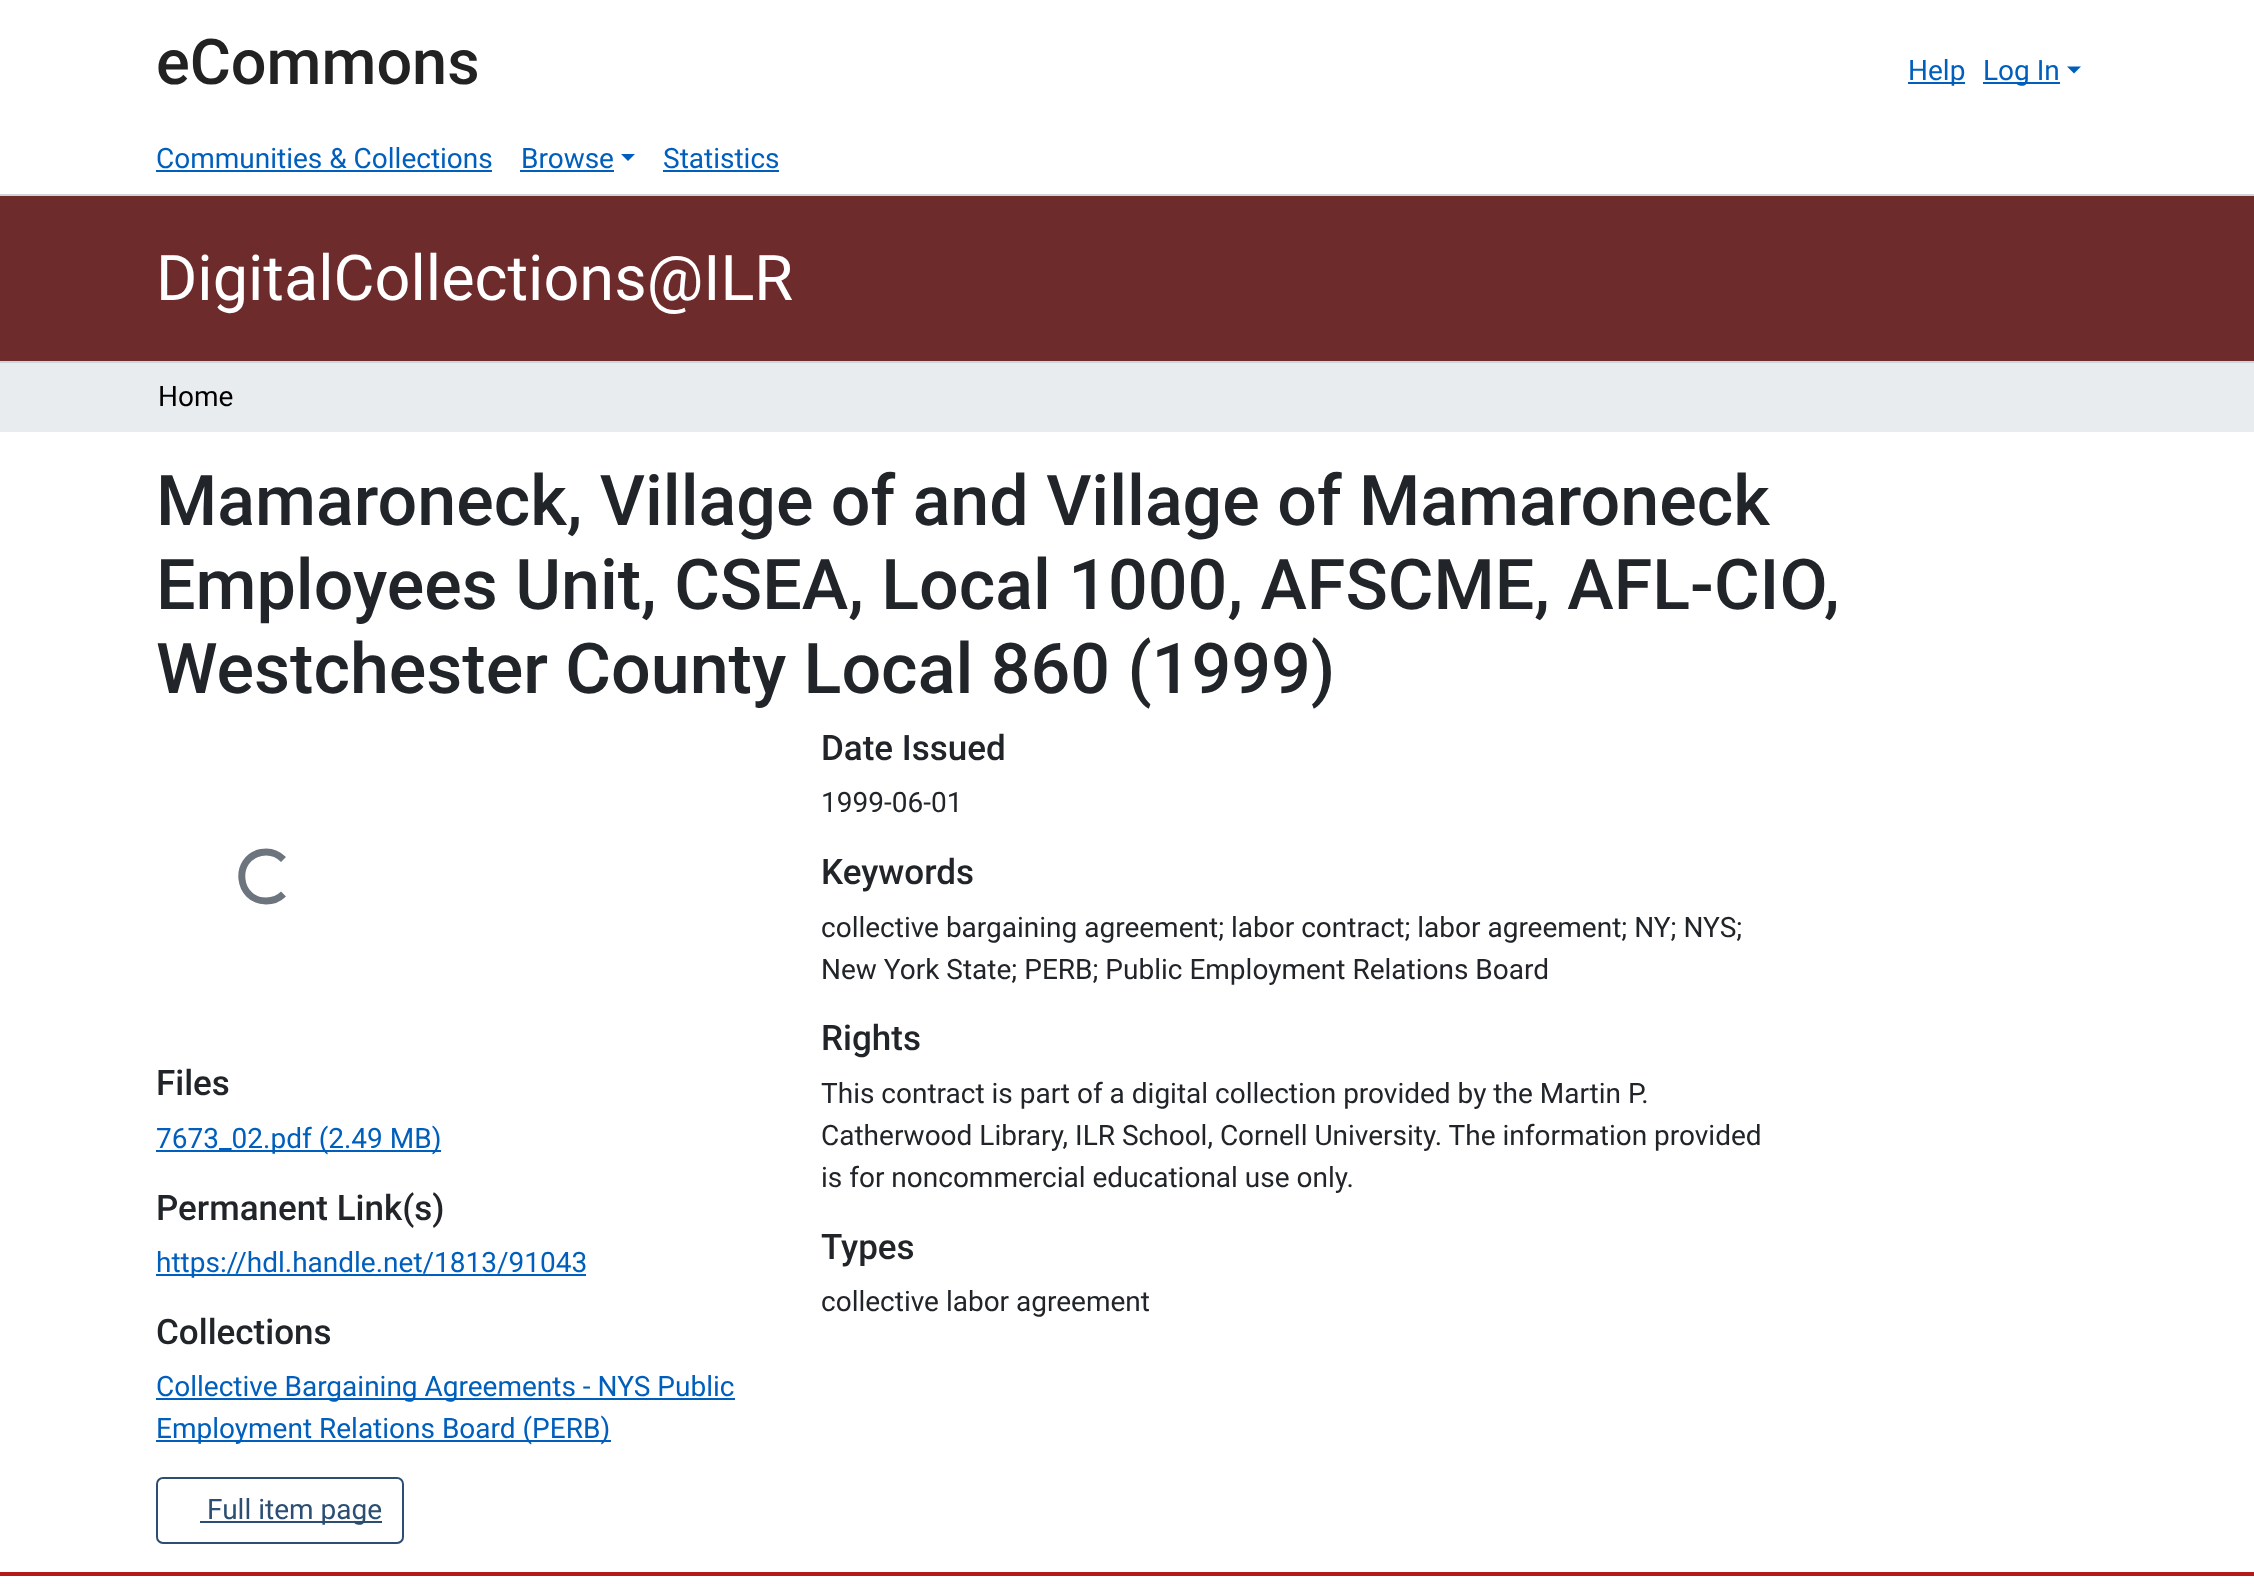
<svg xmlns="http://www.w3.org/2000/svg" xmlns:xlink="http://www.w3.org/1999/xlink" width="2254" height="1584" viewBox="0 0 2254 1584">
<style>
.cls-1{font:500 63px Roboto;fill:#222222}
.cls-2{font:28px Roboto;fill:#005fbd}
.cls-3{font:63px Roboto;fill:#ffffff}
.cls-4{font:28px Roboto;fill:#000000}
.cls-5{font:500 70px Roboto;fill:#212529}
.cls-6{font:500 35px Roboto;fill:#212529}
.cls-7{font:28px Roboto;fill:#2b4e72}
.cls-8{font:28px Roboto;fill:#212529}
</style>
<rect width="100%" height="100%" fill="#ffffff"/>
<rect fill="#ced4da" x="0" y="361" width="2254" height="2"/>
<rect fill="#005fbd" x="1908" y="82" width="57" height="2"/>
<rect fill="#005fbd" x="1983" y="82" width="77" height="2"/>
<path fill="#005fbd" d="M2067 66.5H2081L2074 73.5Z"/>
<rect fill="#ced4da" x="0" y="194" width="2254" height="2"/>
<rect fill="#005fbd" x="156" y="170" width="336" height="2"/>
<rect fill="#005fbd" x="520" y="170" width="94" height="2"/>
<path fill="#005fbd" d="M621 154H635L628 161Z"/>
<rect fill="#005fbd" x="663" y="170" width="116" height="2"/>
<rect fill="#6d2b2b" x="0" y="196" width="2254" height="165"/>
<rect fill="#e9ecef" x="0" y="363" width="2254" height="69"/>
<path fill="none" stroke="#6c757d" stroke-width="7" d="M283.5 894C279 898.5 272.5 901 266 901C237 901 232.5 858.5 261 852.5C269 851 277.5 853.5 283.5 859.5"/>
<rect fill="#005fbd" x="156" y="1150" width="285" height="2"/>
<rect fill="#005fbd" x="156" y="1274" width="430" height="2"/>
<rect fill="#005fbd" x="156" y="1398" width="579" height="2"/>
<rect fill="#005fbd" x="156" y="1440" width="455" height="2"/>
<rect fill="none" stroke="#2b4e72" stroke-width="2" x="157" y="1478" width="246" height="65" rx="6"/>
<rect fill="#2b4e72" x="200" y="1521" width="182" height="2"/>
<rect fill="#b31b1b" x="0" y="1572" width="2254" height="4"/>
<text class="cls-1" x="156" y="84">eCommons</text>
<text class="cls-2" x="1908" y="80">Help</text>
<text class="cls-2" x="1983" y="80">Log In</text>
<text class="cls-2" x="156" y="168">Communities &amp; Collections</text>
<text class="cls-2" x="521" y="168">Browse</text>
<text class="cls-2" x="663" y="168">Statistics</text>
<text class="cls-3" x="156" y="300">DigitalCollections@ILR</text>
<text class="cls-4" x="158" y="406">Home</text>
<text class="cls-5"><tspan x="156" y="525">Mamaroneck, Village of and Village of Mamaroneck</tspan><tspan x="156" y="609">Employees Unit, CSEA, Local 1000, AFSCME, AFL-CIO,</tspan><tspan x="156" y="693">Westchester County Local 860 (1999)</tspan></text>
<text class="cls-6" x="156" y="1095">Files</text>
<text class="cls-2" x="156" y="1148">7673_02.pdf (2.49 MB)</text>
<text class="cls-6" x="156" y="1220">Permanent Link(s)</text>
<text class="cls-2" x="156" y="1272">https://hdl.handle.net/1813/91043</text>
<text class="cls-6" x="156" y="1344">Collections</text>
<text class="cls-2"><tspan x="156" y="1396">Collective Bargaining Agreements - NYS Public</tspan><tspan x="156" y="1438">Employment Relations Board (PERB)</tspan></text>
<text class="cls-7" x="207" y="1519">Full item page</text>
<text class="cls-6" x="821" y="760">Date Issued</text>
<text class="cls-8" x="821" y="812">1999-06-01</text>
<text class="cls-6" x="821" y="884">Keywords</text>
<text class="cls-8"><tspan x="821" y="937">collective bargaining agreement; labor contract; labor agreement; NY; NYS;</tspan><tspan x="821" y="979">New York State; PERB; Public Employment Relations Board</tspan></text>
<text class="cls-6" x="821" y="1050">Rights</text>
<text class="cls-8"><tspan x="821" y="1103">This contract is part of a digital collection provided by the Martin P.</tspan><tspan x="821" y="1145">Catherwood Library, ILR School, Cornell University. The information provided</tspan><tspan x="821" y="1187">is for noncommercial educational use only.</tspan></text>
<text class="cls-6" x="821" y="1259">Types</text>
<text class="cls-8" x="821" y="1311">collective labor agreement</text>
</svg>
